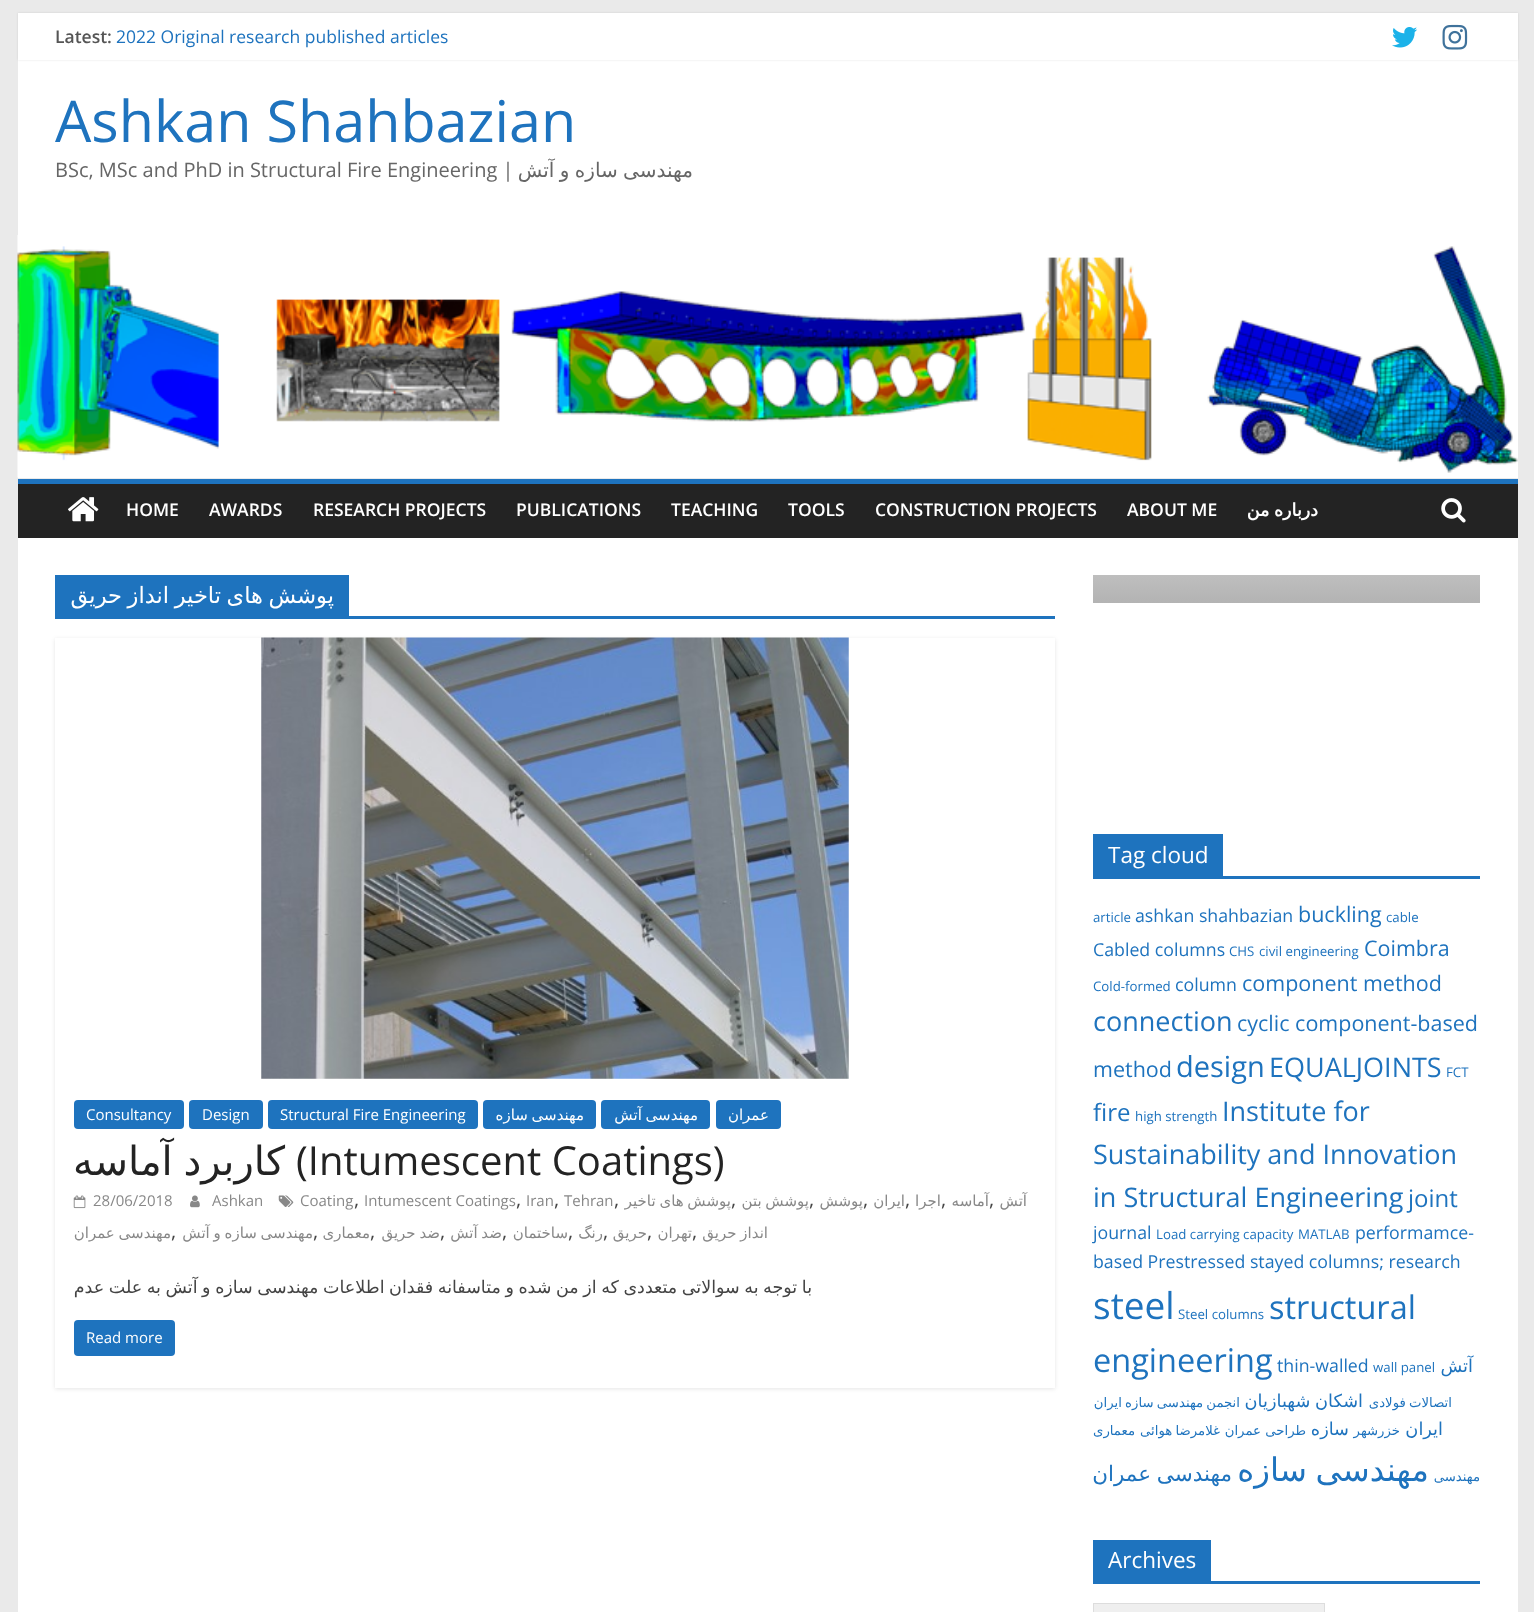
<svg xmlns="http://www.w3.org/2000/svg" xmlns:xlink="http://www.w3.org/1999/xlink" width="1534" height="1612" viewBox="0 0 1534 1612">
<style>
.cls-1{font:600 17.5px Open Sans;fill:#555555}
.cls-2{font:17.5px Open Sans;fill:#1e73be}
.cls-3{font:57.5px Open Sans;fill:#1e73be}
.cls-4{font:20px Open Sans;fill:#666666}
.cls-5{font:20px DejaVu Sans;direction:rtl;fill:#666666}
.cls-6{font:600 17.5px Open Sans;fill:#ffffff}
.cls-7{font:bold 17.5px DejaVu Sans;direction:rtl;fill:#ffffff}
.cls-8{font:22.5px DejaVu Sans;direction:rtl;fill:#ffffff}
.cls-9{font:15px Open Sans;fill:#ffffff}
.cls-10{font:15px DejaVu Sans;direction:rtl;fill:#ffffff}
.cls-11{font:40px DejaVu Sans;direction:rtl;fill:#232323}
.cls-12{font:40px Open Sans;fill:#232323}
.cls-13{font:15px Open Sans;fill:#888888}
.cls-14{font:20px Open Sans;fill:#444444}
.cls-15{font:15px DejaVu Sans;direction:rtl;fill:#888888}
.cls-16{font:17.5px DejaVu Sans;direction:rtl;fill:#444444}
.cls-17{font:22.5px Open Sans;fill:#ffffff}
.cls-18{font:13.25px Open Sans;fill:#1e73be}
.cls-19{font:17.75px Open Sans;fill:#1e73be}
.cls-20{font:21.5px Open Sans;fill:#1e73be}
.cls-21{font:27px Open Sans;fill:#1e73be}
.cls-22{font:29px Open Sans;fill:#1e73be}
.cls-23{font:24px Open Sans;fill:#1e73be}
.cls-24{font:37px Open Sans;fill:#1e73be}
.cls-25{font:32.5px Open Sans;fill:#1e73be}
.cls-26{font:17.75px DejaVu Sans;direction:rtl;fill:#1e73be}
.cls-27{font:13.25px DejaVu Sans;direction:rtl;fill:#1e73be}
.cls-28{font:21.5px DejaVu Sans;direction:rtl;fill:#1e73be}
.cls-29{font:32.5px DejaVu Sans;direction:rtl;fill:#1e73be}
</style>
<defs>
<clipPath id="clip1"><path d="M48 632H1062V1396H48ZM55 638H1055V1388H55Z" clip-rule="evenodd"/></clipPath>
<linearGradient id="g1" gradientUnits="userSpaceOnUse" x1="1286" y1="415" x2="1286" y2="603"><stop offset="0" stop-color="#ffffff"/><stop offset="1" stop-color="#b3b3b3"/></linearGradient>
</defs>
<rect width="100%" height="100%" fill="#eaeaea"/>
<rect fill="#ffffff" x="18" y="60" width="1500" height="418"/>
<rect fill="#000000" fill-opacity="0.1" filter="blur(1px)" x="18" y="13" width="1500" height="47"/>
<rect fill="#ffffff" x="18" y="13" width="1500" height="47"/>
<image xlink:href="image0.png" x="1392" y="27" width="26" height="21"/>
<image xlink:href="image1.png" x="1442" y="24" width="26" height="26"/>
<image xlink:href="image2.png" x="17" y="235" width="1501" height="243"/>
<rect fill="#232323" x="18" y="484" width="1500" height="54"/>
<rect fill="#1e73be" x="18" y="479" width="1500" height="5"/>
<image xlink:href="image3.png" x="68" y="497" width="31" height="25"/>
<image xlink:href="image4.png" x="1441" y="498" width="25" height="25"/>
<rect fill="#ffffff" x="18" y="538" width="1500" height="1074"/>
<rect fill="#1e73be" x="55" y="616" width="1000" height="3"/>
<rect fill="#1e73be" x="55" y="575" width="294" height="41"/>
<g clip-path="url(#clip1)">
<rect fill="#000000" fill-opacity="0.1" filter="blur(2px)" x="55" y="639" width="1000" height="750"/>
</g>
<image xlink:href="image5.png" x="261" y="637" width="588" height="442"/>
<rect fill="#1e73be" x="74" y="1100" width="110" height="29" rx="4"/>
<rect fill="#1e73be" x="189" y="1100" width="74" height="29" rx="4"/>
<rect fill="#1e73be" x="268" y="1100" width="210" height="29" rx="4"/>
<rect fill="#1e73be" x="483" y="1100" width="113" height="29" rx="4"/>
<rect fill="#1e73be" x="601" y="1100" width="109" height="29" rx="4"/>
<rect fill="#1e73be" x="716" y="1100" width="65" height="29" rx="4"/>
<image xlink:href="image6.png" x="278" y="1195" width="16" height="12"/>
<image xlink:href="image7.png" x="73" y="1195" width="13" height="14"/>
<image xlink:href="image8.png" x="190" y="1195" width="10" height="13"/>
<rect fill="#1e73be" x="74" y="1320" width="101" height="36" rx="4"/>
<rect fill="url(#g1)" x="1093" y="575" width="387" height="28"/>
<rect fill="#1e73be" x="1093" y="876" width="387" height="3"/>
<rect fill="#1e73be" x="1093" y="834" width="130" height="42"/>
<rect fill="#1e73be" x="1093" y="1581" width="387" height="3"/>
<rect fill="#1e73be" x="1093" y="1540" width="118" height="41"/>
<rect fill="#efefef" stroke="#dddddd" x="1093.5" y="1603.5" width="231" height="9"/>
<text class="cls-1" x="55" y="43">Latest:</text>
<text class="cls-2" x="116" y="43">2022 Original research published articles</text>
<text class="cls-3" x="55" y="142">Ashkan Shahbazian</text>
<text class="cls-4" x="55" y="177">BSc, MSc and PhD in Structural Fire Engineering |</text>
<text class="cls-5" x="693" y="177" word-spacing="-1">مهندسی سازه و آتش</text>
<text class="cls-6" x="126" y="516">HOME</text>
<text class="cls-6" x="209" y="516">AWARDS</text>
<text class="cls-6" x="313" y="516">RESEARCH PROJECTS</text>
<text class="cls-6" x="516" y="516">PUBLICATIONS</text>
<text class="cls-6" x="671" y="516">TEACHING</text>
<text class="cls-6" x="788" y="516">TOOLS</text>
<text class="cls-6" x="875" y="516">CONSTRUCTION PROJECTS</text>
<text class="cls-6" x="1127" y="516">ABOUT ME</text>
<text class="cls-7" x="1318" y="516" word-spacing="-1">درباره من</text>
<text class="cls-8" x="334" y="603" word-spacing="-1.5">پوشش های تاخیر انداز حریق</text>
<text class="cls-9" x="86" y="1120">Consultancy</text>
<text class="cls-9" x="202" y="1120">Design</text>
<text class="cls-9" x="280" y="1120">Structural Fire Engineering</text>
<text class="cls-10" x="584" y="1120" word-spacing="-1">مهندسی سازه</text>
<text class="cls-10" x="698" y="1120" word-spacing="-1">مهندسی آتش</text>
<text class="cls-10" x="769" y="1120">عمران</text>
<text class="cls-11" x="285" y="1175" word-spacing="-2">کاربرد آماسه</text>
<text class="cls-12" x="296" y="1175">(Intumescent Coatings)</text>
<text class="cls-13" x="300" y="1206">Coating</text>
<text class="cls-14" x="354" y="1206">,</text>
<text class="cls-13" x="364" y="1206">Intumescent Coatings</text>
<text class="cls-14" x="516" y="1206">,</text>
<text class="cls-13" x="526" y="1206">Iran</text>
<text class="cls-14" x="554" y="1206">,</text>
<text class="cls-13" x="564" y="1206">Tehran</text>
<text class="cls-14" x="614" y="1206">,</text>
<text class="cls-15" x="863" y="1206">پوشش</text>
<text class="cls-15" x="905" y="1206">ایران</text>
<text class="cls-15" x="941" y="1206">اجرا</text>
<text class="cls-15" x="1027" y="1206">آتش</text>
<text class="cls-14" x="731" y="1206">,</text>
<text class="cls-15" x="731" y="1206" word-spacing="-1">پوشش های تاخیر</text>
<text class="cls-14" x="809" y="1206">,</text>
<text class="cls-15" x="809" y="1206" word-spacing="-1">پوشش بتن</text>
<text class="cls-14" x="863" y="1206">,</text>
<text class="cls-14" x="905" y="1206">,</text>
<text class="cls-14" x="941" y="1206">,</text>
<text class="cls-14" x="989" y="1206">,</text>
<text class="cls-15" x="989" y="1206">آماسه</text>
<text class="cls-15" x="171" y="1238" word-spacing="-1">مهندسی عمران</text>
<text class="cls-14" x="171" y="1238">,</text>
<text class="cls-14" x="313" y="1238">,</text>
<text class="cls-15" x="313" y="1238" word-spacing="-1">مهندسی سازه و آتش</text>
<text class="cls-15" x="370" y="1238">معماری</text>
<text class="cls-14" x="370" y="1238">,</text>
<text class="cls-15" x="440" y="1238" word-spacing="-1">ضد حریق</text>
<text class="cls-14" x="440" y="1238">,</text>
<text class="cls-15" x="502" y="1238" word-spacing="-1">ضد آتش</text>
<text class="cls-14" x="502" y="1238">,</text>
<text class="cls-15" x="568" y="1238">ساختمان</text>
<text class="cls-14" x="568" y="1238">,</text>
<text class="cls-15" x="603" y="1238">رنگ</text>
<text class="cls-14" x="603" y="1238">,</text>
<text class="cls-15" x="647" y="1238">حریق</text>
<text class="cls-14" x="647" y="1238">,</text>
<text class="cls-15" x="692" y="1238">تهران</text>
<text class="cls-14" x="692" y="1238">,</text>
<text class="cls-15" x="768" y="1238" word-spacing="-1">انداز حریق</text>
<text class="cls-13" x="93" y="1206">28/06/2018</text>
<text class="cls-13" x="212" y="1206">Ashkan</text>
<text class="cls-16" x="812" y="1293" word-spacing="-1">با توجه به سوالاتی متعددی که از من شده و متاسفانه فقدان اطلاعات مهندسی سازه و آتش به علت عدم</text>
<text class="cls-9" x="86" y="1343">Read more</text>
<text class="cls-17" x="1108" y="863">Tag cloud</text>
<text class="cls-18" x="1093" y="922">article</text>
<text class="cls-19" x="1135" y="922">ashkan shahbazian</text>
<text class="cls-20" x="1298" y="922">buckling</text>
<text class="cls-18" x="1386" y="922">cable</text>
<text class="cls-19" x="1093" y="956">Cabled columns</text>
<text class="cls-18" x="1229" y="956">CHS</text>
<text class="cls-18" x="1259" y="956">civil engineering</text>
<text class="cls-20" x="1364" y="956">Coimbra</text>
<text class="cls-18" x="1093" y="991">Cold-formed</text>
<text class="cls-19" x="1175" y="991">column</text>
<text class="cls-20" x="1242" y="991">component method</text>
<text class="cls-21" x="1093" y="1031">connection</text>
<text class="cls-20" x="1237" y="1031">cyclic component-based</text>
<text class="cls-20" x="1093" y="1077">method</text>
<text class="cls-22" x="1176" y="1077">design</text>
<text class="cls-21" x="1269" y="1077">EQUALJOINTS</text>
<text class="cls-18" x="1446" y="1077">FCT</text>
<text class="cls-23" x="1093" y="1121">fire</text>
<text class="cls-18" x="1135" y="1121">high strength</text>
<text class="cls-21" x="1222" y="1121">Institute for</text>
<text class="cls-21"><tspan x="1093" y="1164">Sustainability and Innovation</tspan><tspan x="1093" y="1207">in Structural Engineering</tspan></text>
<text class="cls-23" x="1408" y="1207">joint</text>
<text class="cls-19" x="1093" y="1239">journal</text>
<text class="cls-18" x="1156" y="1239">Load carrying capacity</text>
<text class="cls-18" x="1298" y="1239">MATLAB</text>
<text class="cls-19" x="1355" y="1239">performamce-</text>
<text class="cls-19" x="1093" y="1268">based Prestressed stayed columns; research</text>
<text class="cls-24" x="1093" y="1319">steel</text>
<text class="cls-18" x="1178" y="1319">Steel columns</text>
<text class="cls-25" x="1269" y="1319">structural</text>
<text class="cls-25" x="1093" y="1372">engineering</text>
<text class="cls-19" x="1277" y="1372">thin-walled</text>
<text class="cls-18" x="1373" y="1372">wall panel</text>
<text class="cls-26" x="1473" y="1372">آتش</text>
<text class="cls-27" x="1240" y="1407" word-spacing="-1">انجمن مهندسی سازه ایران</text>
<text class="cls-26" x="1363" y="1407" word-spacing="-1">اشکان شهبازیان</text>
<text class="cls-27" x="1452" y="1407" word-spacing="-1">اتصالات فولادی</text>
<text class="cls-27" x="1135" y="1435">معماری</text>
<text class="cls-27" x="1220" y="1435" word-spacing="-1">غلامرضا هوائی</text>
<text class="cls-27" x="1261" y="1435">عمران</text>
<text class="cls-27" x="1306" y="1435">طراحی</text>
<text class="cls-26" x="1349" y="1435">سازه</text>
<text class="cls-27" x="1400" y="1435">خزرشهر</text>
<text class="cls-26" x="1443" y="1435">ایران</text>
<text class="cls-28" x="1232" y="1481" word-spacing="-1">مهندسی عمران</text>
<text class="cls-29" x="1429" y="1481" word-spacing="-2">مهندسی سازه</text>
<text class="cls-27" x="1480" y="1481">مهندسی</text>
<text class="cls-17" x="1108" y="1568">Archives</text>
</svg>
